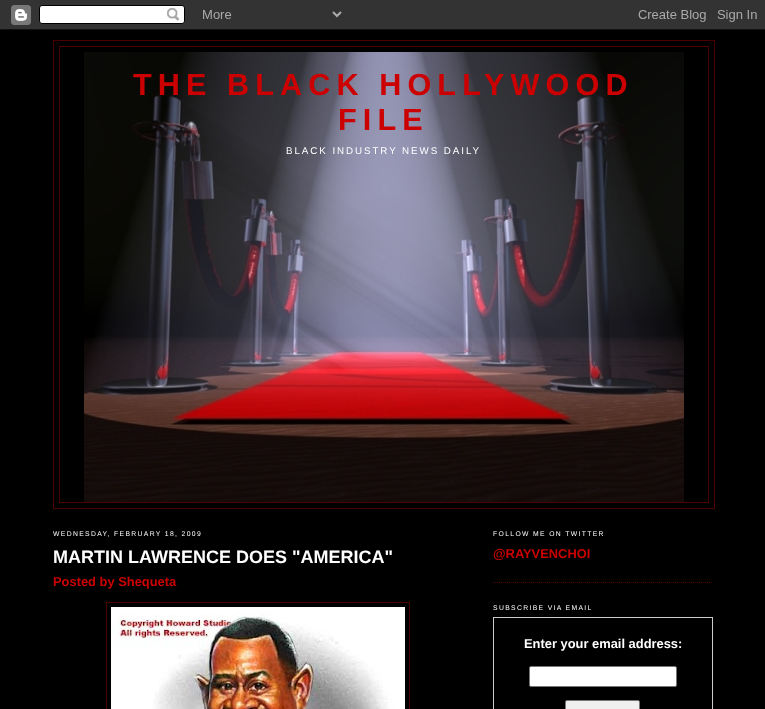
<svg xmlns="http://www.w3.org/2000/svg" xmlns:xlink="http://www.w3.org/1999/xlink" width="765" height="709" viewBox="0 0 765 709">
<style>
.cls-1{font:bold 30.6px Liberation Sans;letter-spacing:6.1px;fill:#cc0000}
.cls-2{font:9.75px Liberation Sans;letter-spacing:1.95px;fill:#ffffff}
.cls-3{font:6.8px Liberation Sans;letter-spacing:1.35px;fill:#ffffff}
.cls-4{font:bold 18px Liberation Sans;fill:#ffffff}
.cls-5{font:bold 12.9px Liberation Sans;fill:#cc0000}
.cls-6{font:bold 12.9px Liberation Sans;fill:#ffffff}
</style>
<rect width="100%" height="100%" fill="#000000"/>
<image xlink:href="image0.png" x="0" y="0" width="765" height="30"/>
<rect fill="none" stroke="#4c0000" x="53.5" y="40.5" width="661" height="468"/>
<rect fill="none" stroke="#4c0000" x="59.5" y="46.5" width="649" height="456"/>
<image xlink:href="image1.png" x="84" y="52" width="600" height="450"/>
<rect fill="none" stroke="#4c0000" x="106.5" y="602.5" width="303" height="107"/>
<image xlink:href="image2.png" x="111" y="607" width="294" height="102"/>
<path fill="none" stroke="#4c0000" stroke-dasharray="1 1" d="M493 582.5H713"/>
<rect fill="none" stroke="#cccccc" x="493.5" y="617.5" width="219" height="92"/>
<rect fill="#ffffff" stroke="#767676" x="529.5" y="666.5" width="147" height="20" rx="1.5"/>
<rect fill="#efefef" stroke="#767676" x="565.5" y="700.5" width="74" height="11" rx="1.5"/>
<text class="cls-1" x="133" y="95">THE BLACK HOLLYWOOD</text>
<text class="cls-1" x="338" y="130">FILE</text>
<text class="cls-2" x="286" y="154">BLACK INDUSTRY NEWS DAILY</text>
<text class="cls-3" x="53" y="536">WEDNESDAY, FEBRUARY 18, 2009</text>
<text class="cls-4" x="53" y="563">MARTIN LAWRENCE DOES "AMERICA"</text>
<text class="cls-5" x="53" y="586">Posted by Shequeta</text>
<text class="cls-3" x="493" y="536">FOLLOW ME ON TWITTER</text>
<text class="cls-5" x="493" y="558">@RAYVENCHOI</text>
<text class="cls-3" x="493" y="610">SUBSCRIBE VIA EMAIL</text>
<text class="cls-6" x="524" y="648">Enter your email address:</text>
</svg>
